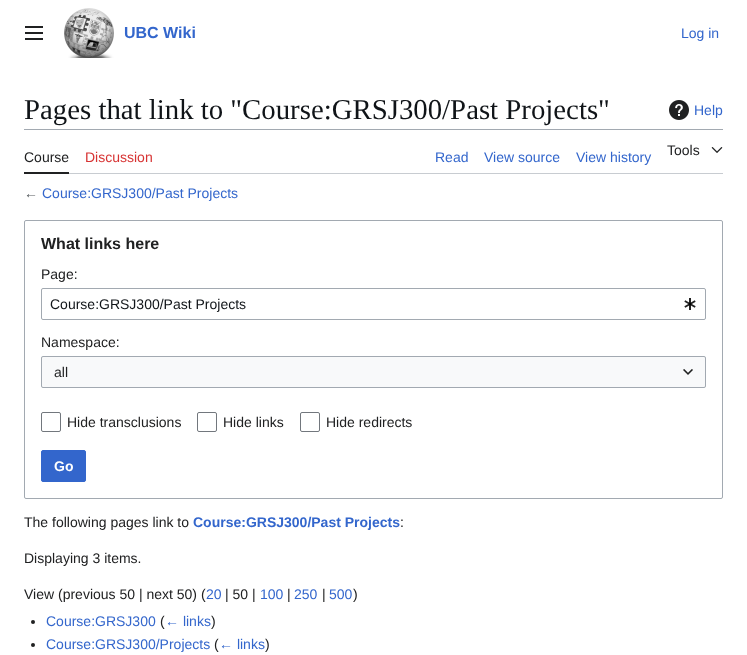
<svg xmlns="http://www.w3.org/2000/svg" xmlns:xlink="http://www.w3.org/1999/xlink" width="747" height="655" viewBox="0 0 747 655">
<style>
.cls-1{font:bold 16px Liberation Sans;fill:#3366cc}
.cls-2{font:14px Liberation Sans;fill:#3366cc}
.cls-3{font:28.8px Liberation Serif;fill:#101418}
.cls-4{font:14px Liberation Sans;fill:#202122}
.cls-5{font:14px Liberation Sans;fill:#d73333}
.cls-6{font:14px Liberation Sans;fill:#54595d}
.cls-7{font:bold 16px Liberation Sans;fill:#202122}
.cls-8{font:14px Liberation Sans;fill:#101418}
.cls-9{font:bold 14px Liberation Sans;fill:#ffffff}
.cls-10{font:bold 14px Liberation Sans;fill:#3366cc}
</style>
<rect width="100%" height="100%" fill="#ffffff"/>
<image xlink:href="image0.png" x="25" y="26" width="18" height="14"/>
<image xlink:href="image1.png" x="64" y="8" width="50" height="50"/>
<image xlink:href="image2.png" x="669" y="100" width="20" height="20"/>
<rect fill="#a2a9b1" x="24" y="129" width="699" height="1"/>
<rect fill="#c8ccd1" x="69" y="173" width="654" height="1"/>
<rect fill="#202122" x="24" y="172" width="45" height="2"/>
<image xlink:href="image3.png" x="711" y="147" width="12" height="6"/>
<rect fill="none" stroke="#a2a9b1" x="24.5" y="220.5" width="698" height="278" rx="1.5"/>
<rect fill="none" stroke="#a2a9b1" x="41.5" y="288.5" width="664" height="31" rx="1.5"/>
<image xlink:href="image4.png" x="684" y="298" width="12" height="12"/>
<rect fill="#f8f9fa" x="41" y="356" width="665" height="32"/>
<rect fill="none" stroke="#a2a9b1" x="41.5" y="356.5" width="664" height="31" rx="1.5"/>
<image xlink:href="image5.png" x="683" y="369" width="10" height="6"/>
<rect fill="none" stroke="#72777d" x="41.5" y="412.5" width="19" height="19" rx="1.5"/>
<rect fill="none" stroke="#72777d" x="197.5" y="412.5" width="19" height="19" rx="1.5"/>
<rect fill="none" stroke="#72777d" x="300.5" y="412.5" width="19" height="19" rx="1.5"/>
<rect fill="#3366cc" stroke="#3366cc" x="41.5" y="450.5" width="44" height="31" rx="1.5"/>
<circle fill="#202122" cx="33" cy="622" r="2"/>
<circle fill="#202122" cx="33" cy="645" r="2"/>
<text class="cls-1" x="124" y="38">UBC Wiki</text>
<text class="cls-2" x="681" y="38">Log in</text>
<text class="cls-3" x="24" y="119">Pages that link to "Course:GRSJ300/Past Projects"</text>
<text class="cls-2" x="694" y="115">Help</text>
<text class="cls-4" x="24" y="162">Course</text>
<text class="cls-5" x="85" y="162">Discussion</text>
<text class="cls-2" x="435" y="162">Read</text>
<text class="cls-2" x="484" y="162">View source</text>
<text class="cls-2" x="576" y="162">View history</text>
<text class="cls-4" x="667" y="155">Tools</text>
<text class="cls-6" x="24" y="198">←</text>
<text class="cls-2" x="42" y="198">Course:GRSJ300/Past Projects</text>
<text class="cls-7" x="41" y="249">What links here</text>
<text class="cls-4" x="41" y="279">Page:</text>
<text class="cls-8" x="50" y="309">Course:GRSJ300/Past Projects</text>
<text class="cls-4" x="41" y="347">Namespace:</text>
<text class="cls-4" x="54" y="377">all</text>
<text class="cls-4" x="67" y="427">Hide transclusions</text>
<text class="cls-4" x="223" y="427">Hide links</text>
<text class="cls-4" x="326" y="427">Hide redirects</text>
<text class="cls-9" x="54" y="471">Go</text>
<text class="cls-4" x="24" y="527">The following pages link to</text>
<text class="cls-10" x="193" y="527">Course:GRSJ300/Past Projects</text>
<text class="cls-4" x="400" y="527">:</text>
<text class="cls-4" x="24" y="563">Displaying 3 items.</text>
<text class="cls-4" x="24" y="599">View (previous 50 | next 50) (</text>
<text class="cls-2" x="206" y="599">20</text>
<text class="cls-4" x="225" y="599">| 50 |</text>
<text class="cls-2" x="260" y="599">100</text>
<text class="cls-4" x="287" y="599">|</text>
<text class="cls-2" x="294" y="599">250</text>
<text class="cls-4" x="322" y="599">|</text>
<text class="cls-2" x="329" y="599">500</text>
<text class="cls-4" x="353" y="599">)</text>
<text class="cls-2" x="46" y="626">Course:GRSJ300</text>
<text class="cls-4" x="160" y="626">(</text>
<text class="cls-2" x="165" y="626">← links</text>
<text class="cls-4" x="211" y="626">)</text>
<text class="cls-2" x="46" y="649">Course:GRSJ300/Projects</text>
<text class="cls-4" x="214" y="649">(</text>
<text class="cls-2" x="219" y="649">← links</text>
<text class="cls-4" x="265" y="649">)</text>
</svg>
